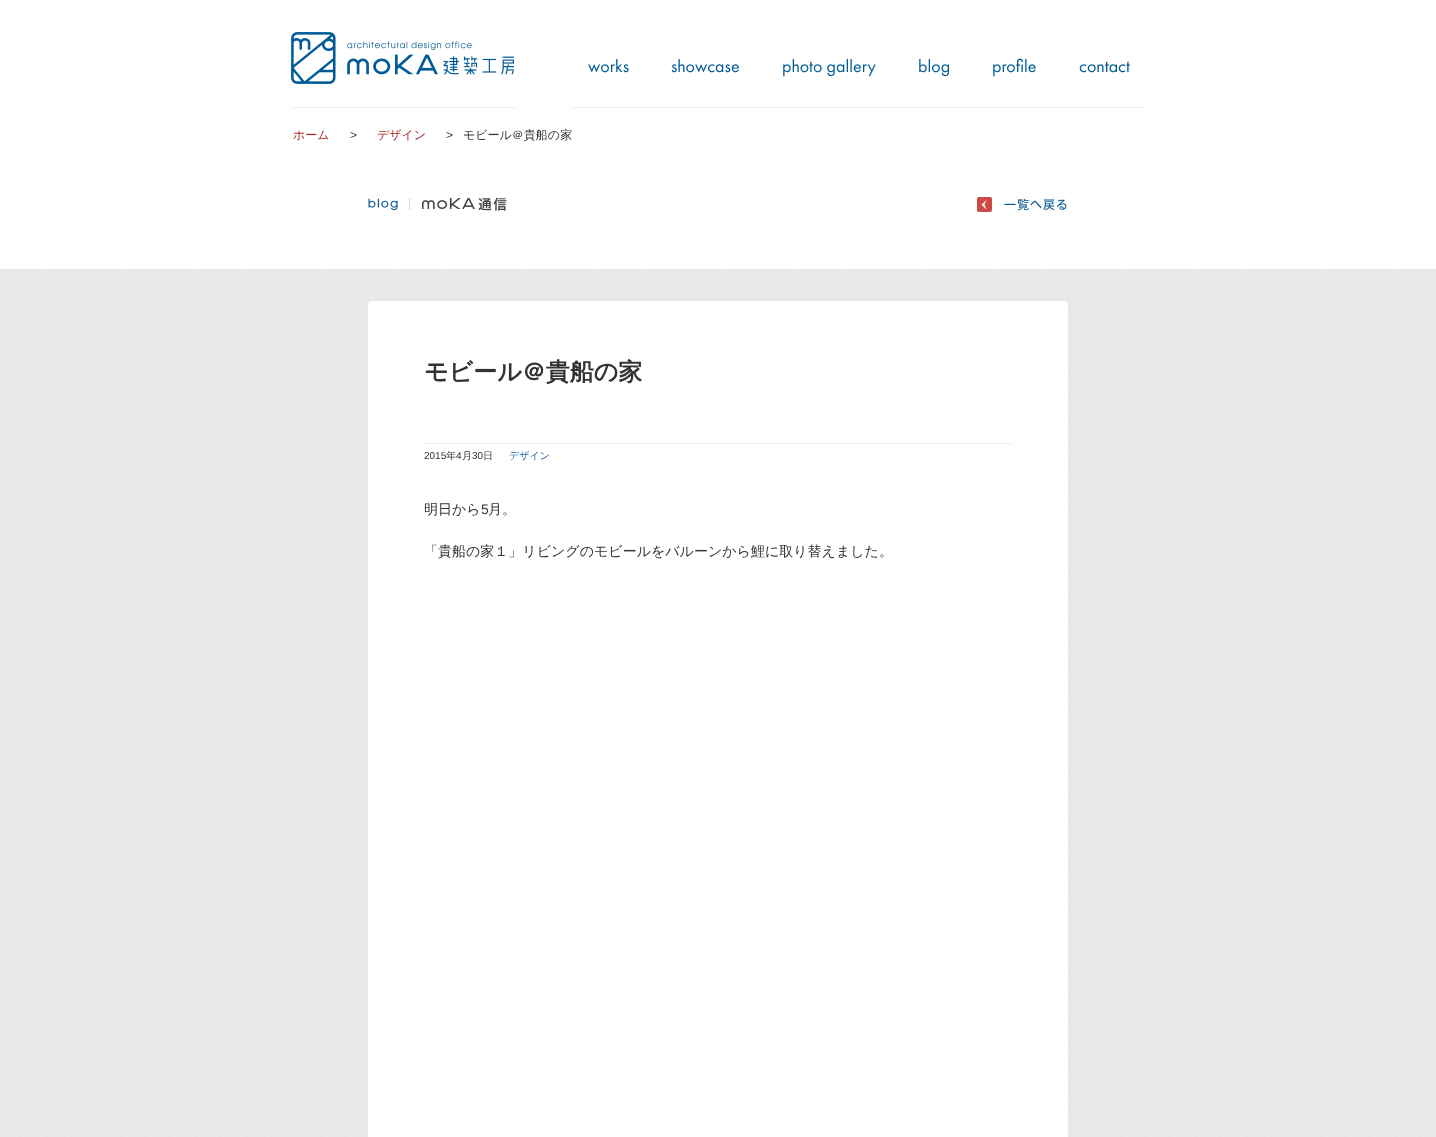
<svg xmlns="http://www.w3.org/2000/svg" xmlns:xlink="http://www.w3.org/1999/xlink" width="1436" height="1137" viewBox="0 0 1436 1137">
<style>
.cls-1{font:18px Futura PT;fill:#005b97}
.cls-2{font:500 12px WenQuanYi Zen Hei;fill:#aa2525}
.cls-3{font:12px Liberation Sans;fill:#333333}
.cls-4{font:500 12px WenQuanYi Zen Hei;fill:#333333}
.cls-5{font:bold 24px WenQuanYi Zen Hei;fill:#333333}
.cls-6{font:10px Liberation Sans;fill:#333333}
.cls-7{font:500 10px WenQuanYi Zen Hei;fill:#333333}
.cls-8{font:500 10px WenQuanYi Zen Hei;fill:#2066a6}
.cls-9{font:500 14px WenQuanYi Zen Hei;fill:#333333}
.cls-10{font:14px Liberation Sans;fill:#333333}
</style>
<rect width="100%" height="100%" fill="#ffffff"/>
<rect fill="#f0f0f0" x="291" y="107" width="225" height="1"/>
<image xlink:href="image0.png" x="291" y="32" width="223" height="52"/>
<rect fill="#f0f0f0" x="572" y="107" width="574" height="1"/>
<image xlink:href="image1.png" x="368" y="197" width="139" height="14"/>
<image xlink:href="image2.png" x="975" y="197" width="92" height="15"/>
<image xlink:href="image3.png" x="0" y="269" width="1436" height="868"/>
<rect fill="#ffffff" x="368" y="301" width="700" height="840" rx="4"/>
<rect fill="#f0f0f0" x="424" y="443" width="588" height="1"/>
<text class="cls-1" x="588" y="72">works</text>
<text class="cls-1" x="671" y="72">showcase</text>
<text class="cls-1" x="782" y="72">photo gallery</text>
<text class="cls-1" x="918" y="72">blog</text>
<text class="cls-1" x="992" y="72">profile</text>
<text class="cls-1" x="1079" y="72">contact</text>
<text class="cls-2" x="293" y="139">ホーム</text>
<text class="cls-3" x="350" y="139">&gt;</text>
<text class="cls-2" x="377" y="139">デザイン</text>
<text class="cls-3" x="446" y="139">&gt;</text>
<text class="cls-4" x="463" y="139">モビール＠貴船の家</text>
<text class="cls-5" x="424" y="380">モビール＠貴船の家</text>
<text class="cls-6" x="424" y="459">2015</text>
<text class="cls-7" x="446" y="459">年</text>
<text class="cls-6" x="456" y="459">4</text>
<text class="cls-7" x="462" y="459">月</text>
<text class="cls-6" x="472" y="459">30</text>
<text class="cls-7" x="483" y="459">日</text>
<text class="cls-8" x="509" y="459">デザイン</text>
<text class="cls-9" x="424" y="514">明日から</text>
<text class="cls-10" x="481" y="514">5</text>
<text class="cls-9" x="488" y="514">月。</text>
<text class="cls-9" x="424" y="556">「貴船の家１」リビングのモビールをバルーンから鯉に取り替えました。</text>
</svg>
